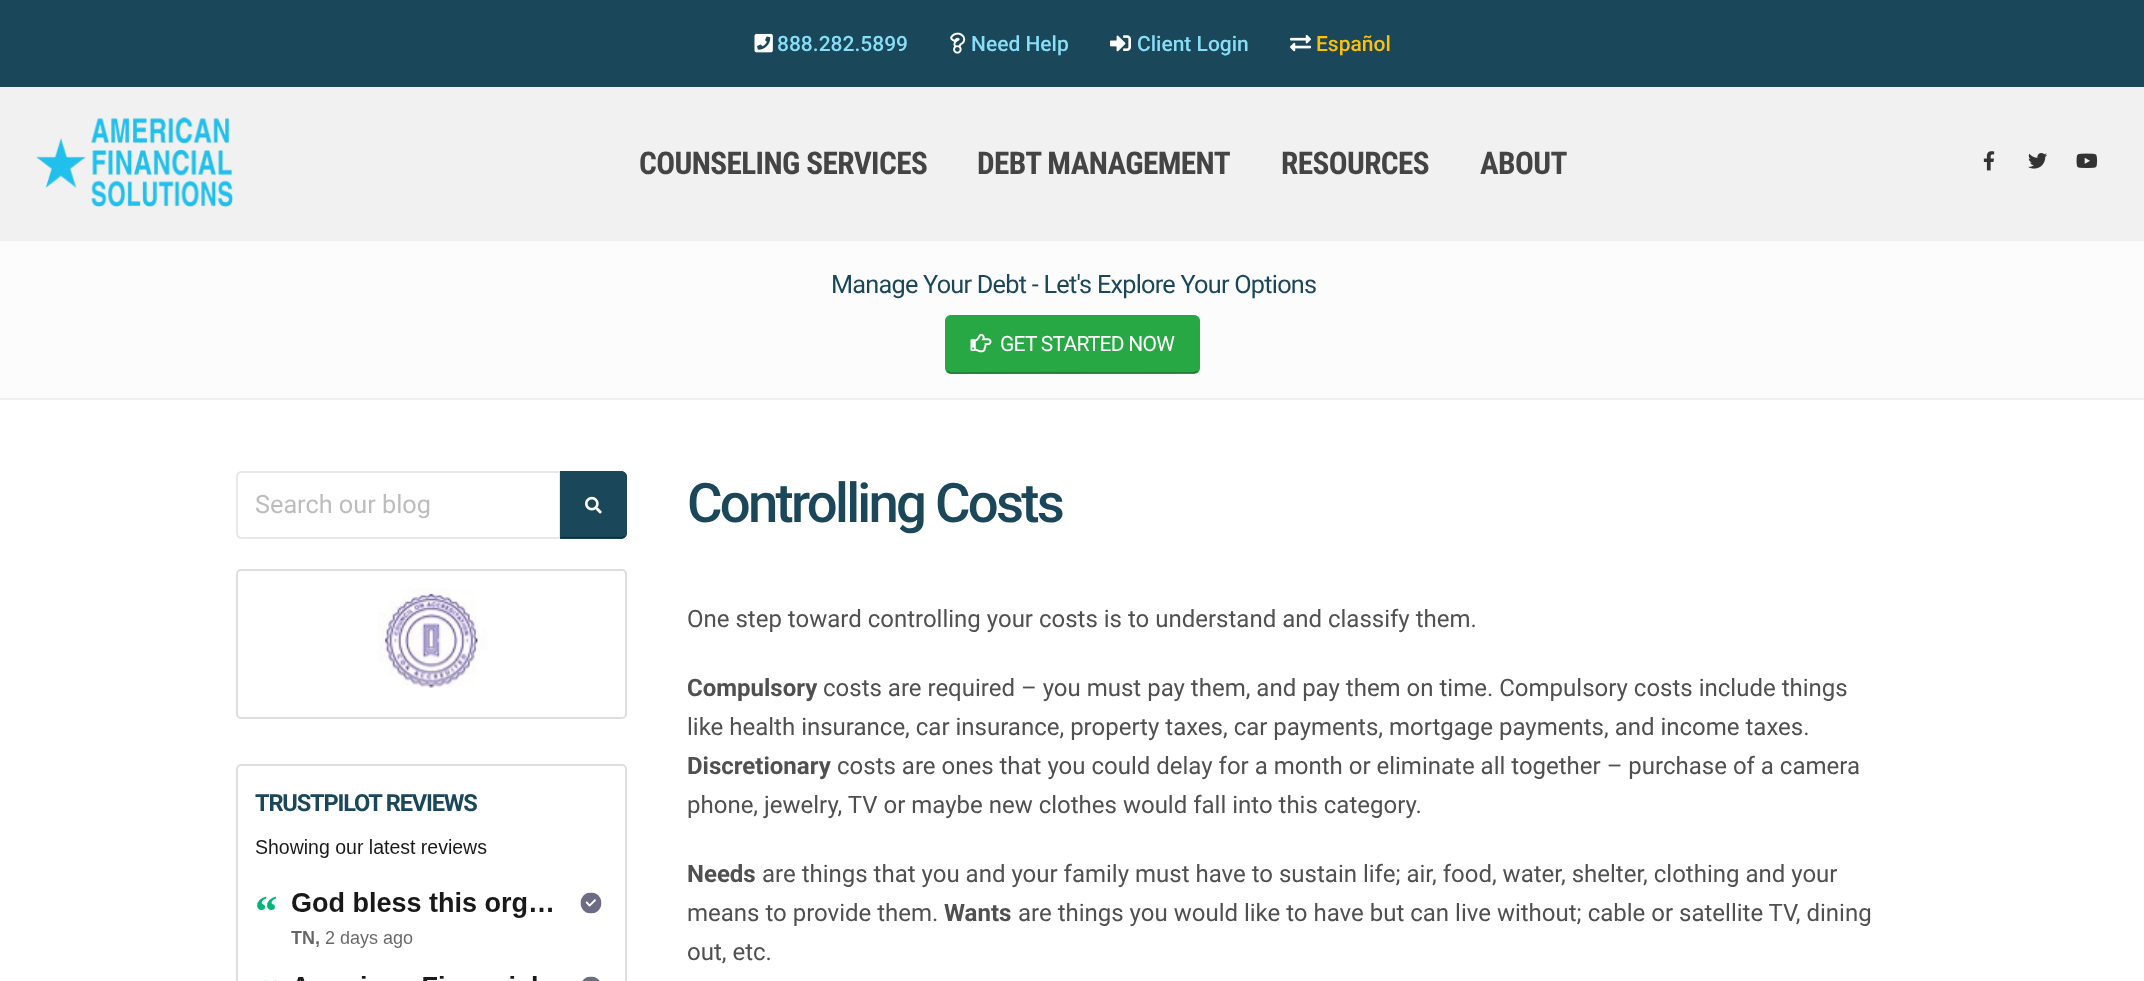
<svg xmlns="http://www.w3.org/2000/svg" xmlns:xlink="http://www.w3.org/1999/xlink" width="2144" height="981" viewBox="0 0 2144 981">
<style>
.cls-1{font:500 21px Roboto;fill:#89def7}
.cls-2{font:500 21px Roboto;fill:#ffc107}
.cls-3{font:bold 31.25px Roboto Condensed;letter-spacing:-0.6px;fill:#444444}
.cls-4{font:25.25px Roboto;letter-spacing:-0.75px;fill:#1a475a}
.cls-5{font:21px Roboto;letter-spacing:-0.75px;fill:#ffffff}
.cls-6{font:25.25px Roboto;fill:#bdbdbd}
.cls-7{font:bold 23.6px Roboto;letter-spacing:-1.2px;fill:#1a475a}
.cls-8{font:500 54.5px Roboto;letter-spacing:-2.75px;fill:#1a475a}
.cls-9{font:24px Roboto;fill:#505050}
.cls-10{font:bold 24px Roboto;fill:#505050}
</style>
<rect width="100%" height="100%" fill="#ffffff"/>
<rect fill="#f1f1f1" x="0" y="87" width="2144" height="152"/>
<rect fill="#1a475a" x="0" y="0" width="2144" height="87"/>
<image xlink:href="image0.png" x="754" y="33" width="19" height="20"/>
<image xlink:href="image1.png" x="950" y="32" width="16" height="22"/>
<image xlink:href="image2.png" x="1110" y="35" width="21" height="17"/>
<image xlink:href="image3.png" x="1290" y="34" width="21" height="18"/>
<image xlink:href="image4.png" x="36" y="117" width="197" height="90"/>
<image xlink:href="image5.png" x="1983" y="151" width="12" height="20"/>
<image xlink:href="image6.png" x="2028" y="153" width="19" height="16"/>
<image xlink:href="image7.png" x="2076" y="153" width="22" height="15"/>
<rect fill="#fcfcfc" x="0" y="241" width="2144" height="157"/>
<rect fill="#f0f0f0" x="0" y="239" width="2144" height="2"/>
<rect fill="#f0f0f0" x="0" y="398" width="2144" height="2"/>
<rect fill="#28a745" x="945" y="315" width="255" height="59" rx="6"/>
<path fill="none" stroke="#1e7e34" stroke-width="1.5" d="M1197.5 371L1194.5 372.5L951 373C949.5 372.5 948.5 372 947.5 371"/>
<path fill="none" stroke="#28a745" stroke-width="1.5" d="M947.5 371C946.5 370 946 369 946 367.5V321C946 319.5 946.5 318.5 947.5 317.5C948.5 316.5 949.5 316 951 316H1194C1195.5 316 1196.5 316.5 1197.5 317.5C1198.5 318.5 1199 319.5 1199 321V367.5C1199 369 1198.5 370 1197.5 371"/>
<image xlink:href="image8.png" x="970" y="333" width="22" height="20"/>
<path fill="none" stroke="#e8e8e8" stroke-width="2" d="M242 472H560V538H242C239 538 237 536 237 533V477C237 474 239 472 242 472Z"/>
<path fill="#1a475a" d="M560 471H621C624.5 471 627 473.5 627 477V533C627 536.5 624.5 539 621 539H560Z"/>
<path fill="#1a475a" d="M560 471L561 472H621L624 474L625 473C624 472 622 471 621 471Z"/>
<path fill="#1a475a" d="M627 532V477C627 476 626 474 625 473L624 474C625 475 626 476 626 477V532C626 534 625 535 624 536L625 537C626 536 627 534 627 532Z"/>
<path fill="#0f2832" d="M625 537C624 538 622 538 621 538H560L561 537H621C622 537 623 537 624 536Z"/>
<path fill="#1a475a" d="M560 472V538L561 537V472Z"/>
<image xlink:href="image9.png" x="585" y="496" width="17" height="18"/>
<rect fill="none" stroke="#dedede" stroke-width="2" x="237" y="570" width="389" height="148" rx="4"/>
<image xlink:href="image10.png" x="377" y="588" width="111" height="100"/>
<rect fill="none" stroke="#dedede" stroke-width="2" x="237" y="765" width="389" height="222" rx="4"/>
<image xlink:href="image11.png" x="256" y="839" width="346" height="142"/>
<text class="cls-1" x="777" y="51">888.282.5899</text>
<text class="cls-1" x="971" y="51">Need Help</text>
<text class="cls-1" x="1137" y="51">Client Login</text>
<text class="cls-2" x="1316" y="51">Español</text>
<text class="cls-3" x="639" y="174">COUNSELING SERVICES</text>
<text class="cls-3" x="977" y="174">DEBT MANAGEMENT</text>
<text class="cls-3" x="1281" y="174">RESOURCES</text>
<text class="cls-3" x="1480" y="174">ABOUT</text>
<text class="cls-4" x="831" y="293">Manage Your Debt - Let's Explore Your Options</text>
<text class="cls-5" x="1000" y="351">GET STARTED NOW</text>
<text class="cls-6" x="255" y="513">Search our blog</text>
<text class="cls-7" x="255" y="811">TRUSTPILOT REVIEWS</text>
<text class="cls-8" x="687" y="522">Controlling Costs</text>
<text class="cls-9" x="687" y="627">One step toward controlling your costs is to understand and classify them.</text>
<text class="cls-10" x="687" y="696">Compulsory</text>
<text class="cls-9" x="823" y="696">costs are required – you must pay them, and pay them on time. Compulsory costs include things</text>
<text class="cls-9" x="687" y="735">like health insurance, car insurance, property taxes, car payments, mortgage payments, and income taxes.</text>
<text class="cls-10" x="687" y="774">Discretionary</text>
<text class="cls-9" x="837" y="774">costs are ones that you could delay for a month or eliminate all together – purchase of a camera</text>
<text class="cls-9" x="687" y="813">phone, jewelry, TV or maybe new clothes would fall into this category.</text>
<text class="cls-10" x="687" y="882">Needs</text>
<text class="cls-9" x="762" y="882">are things that you and your family must have to sustain life; air, food, water, shelter, clothing and your</text>
<text class="cls-9" x="687" y="921">means to provide them.</text>
<text class="cls-10" x="944" y="921">Wants</text>
<text class="cls-9" x="1018" y="921">are things you would like to have but can live without; cable or satellite TV, dining</text>
<text class="cls-9" x="687" y="960">out, etc.</text>
</svg>
